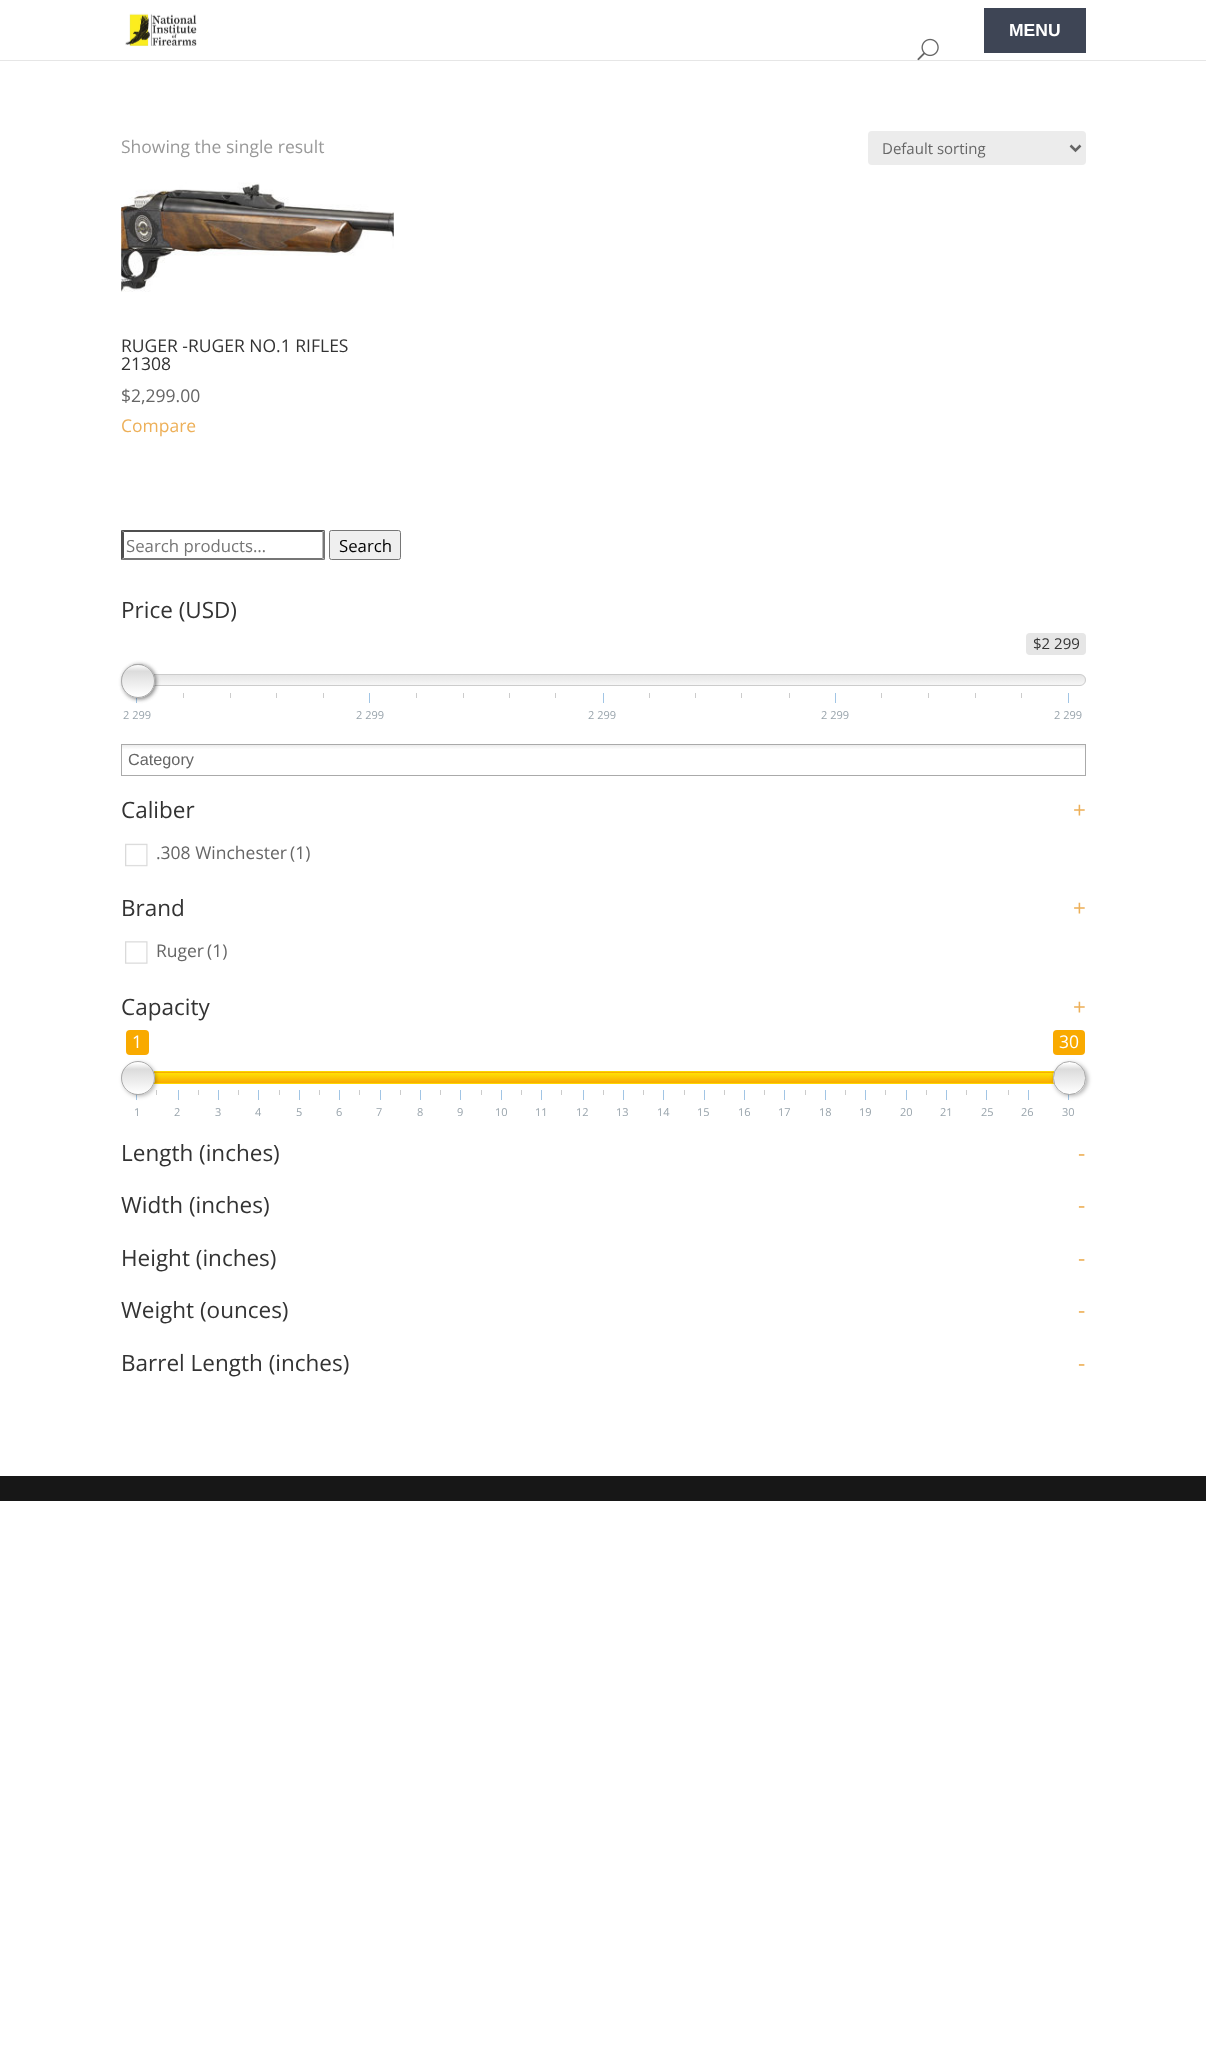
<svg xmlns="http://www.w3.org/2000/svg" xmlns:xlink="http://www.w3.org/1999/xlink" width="1206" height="2062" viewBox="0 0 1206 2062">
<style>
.cls-1{font:bold 17.5px Liberation Sans;fill:#ffffff}
.cls-2{font:17.5px Open Sans;fill:#999999}
.cls-3{font:15px Open Sans;fill:#666666}
.cls-4{font:17.5px Open Sans;fill:#333333}
.cls-5{font:17.5px Open Sans;fill:#666666}
.cls-6{font:17.5px Open Sans;fill:#edb059}
.cls-7{font:16.75px Open Sans;fill:#757575}
.cls-8{font:16.75px Open Sans;fill:#000000}
.cls-9{font:22.5px Open Sans;fill:#333333}
.cls-10{font:15px Open Sans;fill:#333333}
.cls-11{font:11px Open Sans;fill:#99a4ac}
.cls-12{font:16.25px Liberation Sans;fill:#666666}
.cls-13{font:22.5px Open Sans;fill:#edb059}
.cls-14{font:17.5px Open Sans;fill:#ffffff}
</style>
<defs>
<clipPath id="clip1"><rect x="121" y="674" width="965" height="12" rx="6"/></clipPath>
<linearGradient id="g1" gradientUnits="userSpaceOnUse" x1="604" y1="670" x2="604" y2="690"><stop offset="0" stop-color="#dddddd"/><stop offset="1" stop-color="#ffffff"/></linearGradient>
<clipPath id="clip2"><rect x="121" y="664" width="34" height="34" rx="17"/></clipPath>
<linearGradient id="g2" gradientUnits="userSpaceOnUse" x1="138" y1="665" x2="138" y2="696"><stop offset="0" stop-color="#ffffff"/><stop offset="0.2" stop-color="#dcdcdc"/><stop offset="1" stop-color="#ffffff"/></linearGradient>
<linearGradient id="g3" gradientUnits="userSpaceOnUse" x1="138" y1="696" x2="138" y2="728"><stop offset="0" stop-color="#ffffff"/><stop offset="0.2" stop-color="#dcdcdc"/><stop offset="1" stop-color="#ffffff"/></linearGradient>
<linearGradient id="g4" gradientUnits="userSpaceOnUse" x1="604" y1="745" x2="604" y2="775"><stop offset="0.01" stop-color="#eeeeee"/><stop offset="0.15" stop-color="#ffffff"/></linearGradient>
<clipPath id="clip3"><rect x="121" y="1071" width="965" height="13" rx="6.5"/></clipPath>
<linearGradient id="g5" gradientUnits="userSpaceOnUse" x1="604" y1="1068" x2="604" y2="1088"><stop offset="0" stop-color="#dddddd"/><stop offset="1" stop-color="#ffffff"/></linearGradient>
<linearGradient id="g6" gradientUnits="userSpaceOnUse" x1="603" y1="1073" x2="603" y2="1063"><stop offset="0" stop-color="#f9aa00"/><stop offset="1" stop-color="#ffe100" stop-opacity="0.98"/></linearGradient>
<linearGradient id="g7" gradientUnits="userSpaceOnUse" x1="603" y1="1083" x2="603" y2="1073"><stop offset="0" stop-color="#f9aa00"/><stop offset="1" stop-color="#ffe100" stop-opacity="0.98"/></linearGradient>
<clipPath id="clip4"><rect x="121" y="1061" width="34" height="34" rx="17"/></clipPath>
<linearGradient id="g8" gradientUnits="userSpaceOnUse" x1="138" y1="1031" x2="138" y2="1063"><stop offset="0" stop-color="#ffffff"/><stop offset="0.2" stop-color="#dcdcdc"/><stop offset="1" stop-color="#ffffff"/></linearGradient>
<linearGradient id="g9" gradientUnits="userSpaceOnUse" x1="138" y1="1063" x2="138" y2="1094"><stop offset="0" stop-color="#ffffff"/><stop offset="0.2" stop-color="#dcdcdc"/><stop offset="1" stop-color="#ffffff"/></linearGradient>
<clipPath id="clip5"><rect x="1053" y="1061" width="33" height="34" rx="16.5"/></clipPath>
<linearGradient id="g10" gradientUnits="userSpaceOnUse" x1="1069" y1="1031" x2="1069" y2="1063"><stop offset="0" stop-color="#ffffff"/><stop offset="0.2" stop-color="#dcdcdc"/><stop offset="1" stop-color="#ffffff"/></linearGradient>
<linearGradient id="g11" gradientUnits="userSpaceOnUse" x1="1069" y1="1063" x2="1069" y2="1094"><stop offset="0" stop-color="#ffffff"/><stop offset="0.2" stop-color="#dcdcdc"/><stop offset="1" stop-color="#ffffff"/></linearGradient>
</defs>
<rect width="100%" height="100%" fill="#ffffff"/>
<rect fill="#e6e6e6" x="0" y="60" width="1206" height="1"/>
<image xlink:href="image0.png" x="125" y="13" width="72" height="34"/>
<rect fill="#3e4555" x="984" y="8" width="102" height="45"/>
<image xlink:href="image1.png" x="917" y="38" width="22" height="23"/>
<rect fill="#ececec" x="868" y="131" width="218" height="34" rx="4"/>
<path fill="none" stroke="#666666" stroke-width="2.5" d="M1070.5 145.5L1075.5 150.5L1080.5 145.5"/>
<image xlink:href="image2.png" x="121" y="182" width="273" height="110"/>
<path fill="#4f4f4f" d="M121 530H325L322 532H124Z"/>
<path fill="#767676" d="M325 530V560L322.5 557.5V532.5Z"/>
<path fill="#767676" d="M325 560H121L124 558H322Z"/>
<path fill="#4f4f4f" d="M121 560V530L124 532.5V557.5Z"/>
<rect fill="#efefef" stroke="#767676" x="329.5" y="530.5" width="71" height="29" rx="2"/>
<rect fill="#e6e6e6" x="1026" y="633" width="60" height="22" rx="4"/>
<g clip-path="url(#clip1)">
<rect fill="url(#g1)" x="121" y="675" width="965" height="10"/>
</g>
<rect fill="none" stroke="#cccccc" x="121.5" y="674.5" width="964" height="11" rx="5.5"/>
<rect fill="#a1c5e5" x="136" y="693" width="1" height="10"/>
<rect fill="#000000" fill-opacity="0.3" filter="blur(2px)" x="123" y="665" width="33" height="34" rx="16.5"/>
<circle fill="none" stroke="#aaaaaa" cx="138" cy="681" r="16.5"/>
<rect fill="#000000" fill-opacity="0.3" filter="blur(2px)" x="123" y="665" width="33" height="34" rx="16.5"/>
<g clip-path="url(#clip2)">
<rect fill="url(#g2)" x="121" y="665" width="34" height="31"/>
<rect fill="url(#g3)" x="130" y="696" width="16" height="2"/>
</g>
<circle fill="none" stroke="#aaaaaa" cx="138" cy="681" r="16.5"/>
<rect fill="#cccccc" x="183" y="693" width="1" height="5"/>
<rect fill="#cccccc" x="230" y="693" width="1" height="5"/>
<rect fill="#cccccc" x="276" y="693" width="1" height="5"/>
<rect fill="#cccccc" x="323" y="693" width="1" height="5"/>
<rect fill="#a1c5e5" x="369" y="693" width="1" height="10"/>
<rect fill="#cccccc" x="416" y="693" width="1" height="5"/>
<rect fill="#cccccc" x="463" y="693" width="1" height="5"/>
<rect fill="#cccccc" x="509" y="693" width="1" height="5"/>
<rect fill="#cccccc" x="555" y="693" width="1" height="5"/>
<rect fill="#a1c5e5" x="603" y="693" width="1" height="10"/>
<rect fill="#cccccc" x="649" y="693" width="1" height="5"/>
<rect fill="#cccccc" x="695" y="693" width="1" height="5"/>
<rect fill="#cccccc" x="741" y="693" width="1" height="5"/>
<rect fill="#cccccc" x="789" y="693" width="1" height="5"/>
<rect fill="#a1c5e5" x="835" y="693" width="1" height="10"/>
<rect fill="#cccccc" x="881" y="693" width="1" height="5"/>
<rect fill="#cccccc" x="928" y="693" width="1" height="5"/>
<rect fill="#cccccc" x="975" y="693" width="1" height="5"/>
<rect fill="#cccccc" x="1021" y="693" width="1" height="5"/>
<rect fill="#a1c5e5" x="1068" y="693" width="1" height="10"/>
<rect fill="url(#g4)" x="122" y="745" width="963" height="4"/>
<rect fill="none" stroke="#aaaaaa" x="121.5" y="744.5" width="964" height="31"/>
<image xlink:href="image3.png" x="125" y="843" width="23" height="24"/>
<image xlink:href="image4.png" x="125" y="941" width="23" height="23"/>
<rect fill="#f9aa00" x="126" y="1030" width="23" height="25" rx="4"/>
<rect fill="#f9aa00" x="1053" y="1030" width="32" height="25" rx="4"/>
<g clip-path="url(#clip3)">
<rect fill="url(#g5)" x="121" y="1073" width="965" height="8"/>
</g>
<rect fill="none" stroke="#cccccc" x="121.5" y="1071.5" width="964" height="12" rx="6"/>
<rect fill="url(#g6)" x="153" y="1072" width="901" height="1"/>
<rect fill="url(#g7)" x="154" y="1073" width="900" height="10"/>
<rect fill="#fcd600" x="153" y="1071" width="902" height="1"/>
<rect fill="#fcd600" x="153" y="1083" width="901" height="1"/>
<rect fill="#a1c5e5" x="136" y="1090" width="1" height="10"/>
<rect fill="#cccccc" x="156" y="1090" width="1" height="5"/>
<rect fill="#000000" fill-opacity="0.3" filter="blur(2px)" x="123" y="1063" width="33" height="33" rx="16.5"/>
<g clip-path="url(#clip4)">
<rect fill="url(#g8)" x="130" y="1061" width="16" height="2"/>
<rect fill="url(#g9)" x="121" y="1063" width="34" height="31"/>
</g>
<circle fill="none" stroke="#aaaaaa" cx="138" cy="1078" r="16.5"/>
<rect fill="#a1c5e5" x="1068" y="1090" width="1" height="10"/>
<rect fill="#000000" fill-opacity="0.3" filter="blur(2px)" x="1054" y="1063" width="34" height="33" rx="16.5"/>
<g clip-path="url(#clip5)">
<rect fill="url(#g10)" x="1053" y="1061" width="33" height="2"/>
<rect fill="url(#g11)" x="1053" y="1063" width="33" height="31"/>
</g>
<rect fill="none" stroke="#aaaaaa" x="1053.5" y="1061.5" width="32" height="33" rx="16"/>
<rect fill="#a1c5e5" x="178" y="1090" width="1" height="10"/>
<rect fill="#cccccc" x="198" y="1090" width="1" height="5"/>
<rect fill="#a1c5e5" x="218" y="1090" width="1" height="10"/>
<rect fill="#cccccc" x="238" y="1090" width="1" height="5"/>
<rect fill="#a1c5e5" x="258" y="1090" width="1" height="10"/>
<rect fill="#cccccc" x="279" y="1090" width="1" height="5"/>
<rect fill="#a1c5e5" x="299" y="1090" width="1" height="10"/>
<rect fill="#cccccc" x="319" y="1090" width="1" height="5"/>
<rect fill="#a1c5e5" x="339" y="1090" width="1" height="10"/>
<rect fill="#cccccc" x="359" y="1090" width="1" height="5"/>
<rect fill="#a1c5e5" x="380" y="1090" width="1" height="10"/>
<rect fill="#cccccc" x="400" y="1090" width="1" height="5"/>
<rect fill="#a1c5e5" x="420" y="1090" width="1" height="10"/>
<rect fill="#cccccc" x="440" y="1090" width="1" height="5"/>
<rect fill="#a1c5e5" x="460" y="1090" width="1" height="10"/>
<rect fill="#cccccc" x="481" y="1090" width="1" height="5"/>
<rect fill="#a1c5e5" x="501" y="1090" width="1" height="10"/>
<rect fill="#cccccc" x="521" y="1090" width="1" height="5"/>
<rect fill="#a1c5e5" x="541" y="1090" width="1" height="10"/>
<rect fill="#cccccc" x="561" y="1090" width="1" height="5"/>
<rect fill="#a1c5e5" x="583" y="1090" width="1" height="10"/>
<rect fill="#cccccc" x="603" y="1090" width="1" height="5"/>
<rect fill="#a1c5e5" x="623" y="1090" width="1" height="10"/>
<rect fill="#cccccc" x="643" y="1090" width="1" height="5"/>
<rect fill="#a1c5e5" x="663" y="1090" width="1" height="10"/>
<rect fill="#cccccc" x="684" y="1090" width="1" height="5"/>
<rect fill="#a1c5e5" x="704" y="1090" width="1" height="10"/>
<rect fill="#cccccc" x="724" y="1090" width="1" height="5"/>
<rect fill="#a1c5e5" x="744" y="1090" width="1" height="10"/>
<rect fill="#cccccc" x="764" y="1090" width="1" height="5"/>
<rect fill="#a1c5e5" x="784" y="1090" width="1" height="10"/>
<rect fill="#cccccc" x="805" y="1090" width="1" height="5"/>
<rect fill="#a1c5e5" x="825" y="1090" width="1" height="10"/>
<rect fill="#cccccc" x="845" y="1090" width="1" height="5"/>
<rect fill="#a1c5e5" x="865" y="1090" width="1" height="10"/>
<rect fill="#cccccc" x="885" y="1090" width="1" height="5"/>
<rect fill="#a1c5e5" x="906" y="1090" width="1" height="10"/>
<rect fill="#cccccc" x="926" y="1090" width="1" height="5"/>
<rect fill="#a1c5e5" x="946" y="1090" width="1" height="10"/>
<rect fill="#cccccc" x="966" y="1090" width="1" height="5"/>
<rect fill="#a1c5e5" x="986" y="1090" width="1" height="10"/>
<rect fill="#cccccc" x="1008" y="1090" width="1" height="5"/>
<rect fill="#a1c5e5" x="1028" y="1090" width="1" height="10"/>
<rect fill="#171717" x="0" y="1476" width="1206" height="25"/>
<text class="cls-1" x="1009" y="36">MENU</text>
<text class="cls-2" x="121" y="153">Showing the single result</text>
<text class="cls-3" x="882" y="154">Default sorting</text>
<text class="cls-4"><tspan x="121" y="352">RUGER -RUGER NO.1 RIFLES</tspan><tspan x="121" y="370">21308</tspan></text>
<text class="cls-5" x="121" y="402">$2,299.00</text>
<text class="cls-6" x="121" y="432">Compare</text>
<text class="cls-7" x="126" y="552">Search products…</text>
<text class="cls-8" x="339" y="552">Search</text>
<text class="cls-9" x="121" y="618">Price (USD)</text>
<text class="cls-10" x="1033" y="649">$2 299</text>
<text class="cls-11" x="123" y="719">2 299</text>
<text class="cls-11" x="356" y="719">2 299</text>
<text class="cls-11" x="588" y="719">2 299</text>
<text class="cls-11" x="821" y="719">2 299</text>
<text class="cls-11" x="1054" y="719">2 299</text>
<text class="cls-12" x="128" y="765">Category</text>
<text class="cls-9" x="121" y="818">Caliber</text>
<text class="cls-13" x="1073" y="818">+</text>
<text class="cls-5" x="156" y="859">.308 Winchester</text>
<text class="cls-5" x="290" y="859">(1)</text>
<text class="cls-9" x="121" y="916">Brand</text>
<text class="cls-13" x="1073" y="916">+</text>
<text class="cls-5" x="156" y="957">Ruger</text>
<text class="cls-5" x="207" y="957">(1)</text>
<text class="cls-9" x="121" y="1015">Capacity</text>
<text class="cls-13" x="1073" y="1015">+</text>
<text class="cls-14" x="132" y="1048">1</text>
<text class="cls-14" x="1059" y="1048">30</text>
<text class="cls-11" x="134" y="1116">1</text>
<text class="cls-11" x="174" y="1116">2</text>
<text class="cls-11" x="215" y="1116">3</text>
<text class="cls-11" x="255" y="1116">4</text>
<text class="cls-11" x="296" y="1116">5</text>
<text class="cls-11" x="336" y="1116">6</text>
<text class="cls-11" x="376" y="1116">7</text>
<text class="cls-11" x="417" y="1116">8</text>
<text class="cls-11" x="457" y="1116">9</text>
<text class="cls-11" x="495" y="1116">10</text>
<text class="cls-11" x="535" y="1116">11</text>
<text class="cls-11" x="576" y="1116">12</text>
<text class="cls-11" x="616" y="1116">13</text>
<text class="cls-11" x="657" y="1116">14</text>
<text class="cls-11" x="697" y="1116">15</text>
<text class="cls-11" x="738" y="1116">16</text>
<text class="cls-11" x="778" y="1116">17</text>
<text class="cls-11" x="819" y="1116">18</text>
<text class="cls-11" x="859" y="1116">19</text>
<text class="cls-11" x="900" y="1116">20</text>
<text class="cls-11" x="940" y="1116">21</text>
<text class="cls-11" x="981" y="1116">25</text>
<text class="cls-11" x="1021" y="1116">26</text>
<text class="cls-11" x="1062" y="1116">30</text>
<text class="cls-9" x="121" y="1161">Length (inches)</text>
<text class="cls-13" x="1078" y="1161">-</text>
<text class="cls-9" x="121" y="1213">Width (inches)</text>
<text class="cls-13" x="1078" y="1213">-</text>
<text class="cls-9" x="121" y="1266">Height (inches)</text>
<text class="cls-13" x="1078" y="1266">-</text>
<text class="cls-9" x="121" y="1318">Weight (ounces)</text>
<text class="cls-13" x="1078" y="1318">-</text>
<text class="cls-9" x="121" y="1371">Barrel Length (inches)</text>
<text class="cls-13" x="1078" y="1371">-</text>
</svg>
